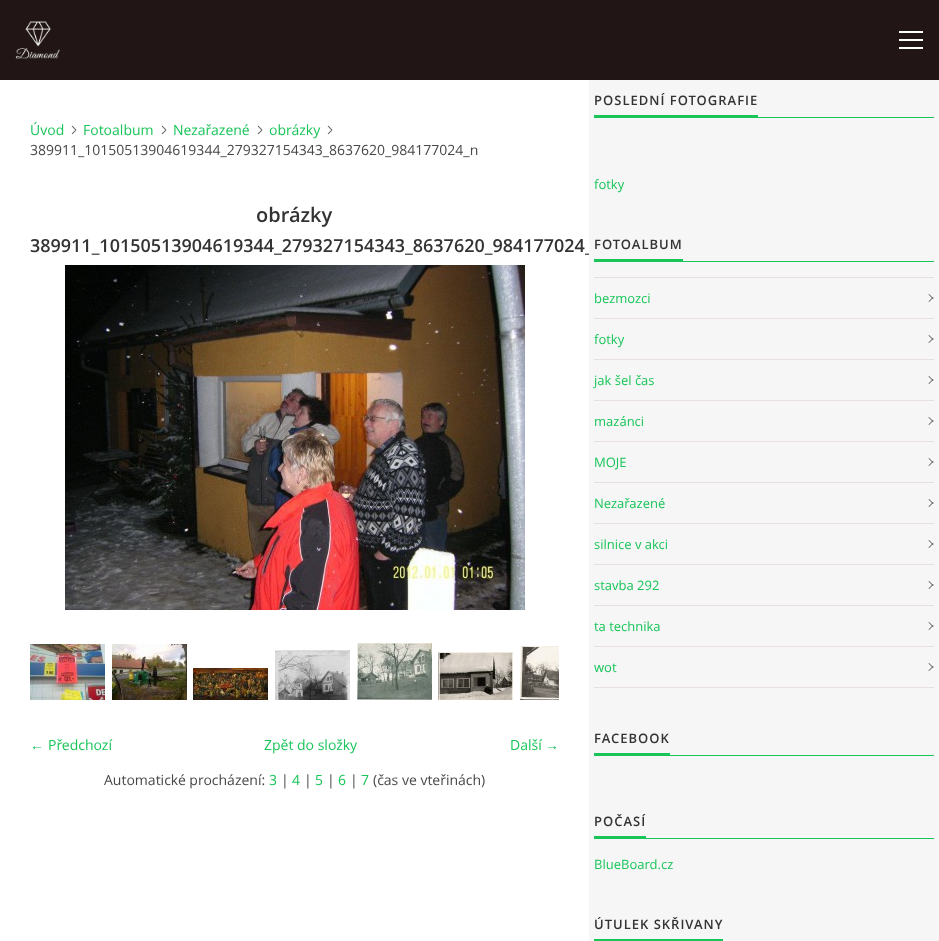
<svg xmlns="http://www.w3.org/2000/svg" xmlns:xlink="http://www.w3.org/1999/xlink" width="939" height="941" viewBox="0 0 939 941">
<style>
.cls-1{font:14px Open Sans;fill:#19c559}
.cls-2{font:14px Open Sans;fill:#484848}
.cls-3{font:600 20px Open Sans;fill:#333333}
.cls-4{font:600 18px Open Sans;fill:#333333}
.cls-5{font:14px Liberation Serif;fill:#19c559}
.cls-6{font:600 13px Open Sans;letter-spacing:1px;fill:#333333}
.cls-7{font:13px Open Sans;fill:#19c559}
</style>
<rect width="100%" height="100%" fill="#ffffff"/>
<rect fill="#211515" x="0" y="0" width="939" height="80"/>
<image xlink:href="image0.png" x="15" y="21" width="45" height="38"/>
<image xlink:href="image1.png" x="899" y="31" width="24" height="18"/>
<image xlink:href="image2.png" x="71" y="125" width="6" height="10"/>
<image xlink:href="image2.png" x="161" y="125" width="6" height="10"/>
<image xlink:href="image2.png" x="257" y="125" width="6" height="10"/>
<image xlink:href="image2.png" x="327" y="125" width="6" height="10"/>
<image xlink:href="image3.png" x="65" y="265" width="460" height="345"/>
<image xlink:href="image4.png" x="30" y="644" width="75" height="56"/>
<image xlink:href="image5.png" x="112" y="644" width="75" height="56"/>
<image xlink:href="image6.png" x="193" y="668" width="75" height="32"/>
<image xlink:href="image7.png" x="275" y="650" width="75" height="50"/>
<image xlink:href="image8.png" x="357" y="643" width="75" height="57"/>
<image xlink:href="image9.png" x="438" y="652" width="75" height="48"/>
<image xlink:href="image10.png" x="520" y="646" width="39" height="54"/>
<text class="cls-1" x="30" y="135">Úvod</text>
<text class="cls-1" x="83" y="135">Fotoalbum</text>
<text class="cls-1" x="173" y="135">Nezařazené</text>
<text class="cls-1" x="269" y="135">obrázky</text>
<text class="cls-2" x="30" y="155">389911_10150513904619344_279327154343_8637620_984177024_n</text>
<text class="cls-3" x="256" y="222">obrázky</text>
<text class="cls-4" x="30" y="252">389911_10150513904619344_279327154343_8637620_984177024_</text>
<text class="cls-5" x="30" y="750">←</text>
<text class="cls-1" x="48" y="750">Předchozí</text>
<text class="cls-1" x="264" y="750">Zpět do složky</text>
<text class="cls-1" x="510" y="750">Další</text>
<text class="cls-5" x="545" y="750">→</text>
<text class="cls-2" x="104" y="785">Automatické procházení:</text>
<text class="cls-1" x="269" y="785">3</text>
<text class="cls-2" x="281" y="785">|</text>
<text class="cls-1" x="292" y="785">4</text>
<text class="cls-2" x="304" y="785">|</text>
<text class="cls-1" x="315" y="785">5</text>
<text class="cls-2" x="327" y="785">|</text>
<text class="cls-1" x="338" y="785">6</text>
<text class="cls-2" x="350" y="785">|</text>
<text class="cls-1" x="361" y="785">7</text>
<text class="cls-2" x="373" y="785">(čas ve vteřinách)</text>
<rect fill="#f6f6f6" x="589" y="80" width="350" height="861"/>
<text class="cls-6" x="594" y="105">POSLEDNÍ FOTOGRAFIE</text>
<rect fill="#19c559" x="594" y="115" width="164" height="2"/>
<rect fill="#19c559" x="594" y="117" width="340" height="1"/>
<text class="cls-7" x="594" y="189">fotky</text>
<text class="cls-6" x="594" y="249">FOTOALBUM</text>
<rect fill="#19c559" x="594" y="259" width="89" height="2"/>
<rect fill="#19c559" x="594" y="261" width="340" height="1"/>
<rect fill="#e8dfdf" x="594" y="277" width="340" height="1"/>
<rect fill="#e8dfdf" x="594" y="318" width="340" height="1"/>
<text class="cls-7" x="594" y="303">bezmozci</text>
<path fill="#484848" d="M929 294L933.5 298.5L933 299L928.5 294.5Z"/>
<path fill="#484848" d="M928.5 301.5L933 297L933.5 297.5L929 302Z"/>
<rect fill="#e8dfdf" x="594" y="359" width="340" height="1"/>
<text class="cls-7" x="594" y="344">fotky</text>
<path fill="#484848" d="M929 335L933.5 339.5L933 340L928.5 335.5Z"/>
<path fill="#484848" d="M928.5 342.5L933 338L933.5 338.5L929 343Z"/>
<rect fill="#e8dfdf" x="594" y="400" width="340" height="1"/>
<text class="cls-7" x="594" y="385">jak šel čas</text>
<path fill="#484848" d="M929 376L933.5 380.5L933 381L928.5 376.5Z"/>
<path fill="#484848" d="M928.5 383.5L933 379L933.5 379.5L929 384Z"/>
<rect fill="#e8dfdf" x="594" y="441" width="340" height="1"/>
<text class="cls-7" x="594" y="426">mazánci</text>
<path fill="#484848" d="M929 417L933.5 421.5L933 422L928.5 417.5Z"/>
<path fill="#484848" d="M928.5 424.5L933 420L933.5 420.5L929 425Z"/>
<rect fill="#e8dfdf" x="594" y="482" width="340" height="1"/>
<text class="cls-7" x="594" y="467">MOJE</text>
<path fill="#484848" d="M929 458L933.5 462.5L933 463L928.5 458.5Z"/>
<path fill="#484848" d="M928.5 465.5L933 461L933.5 461.5L929 466Z"/>
<rect fill="#e8dfdf" x="594" y="523" width="340" height="1"/>
<text class="cls-7" x="594" y="508">Nezařazené</text>
<path fill="#484848" d="M929 499L933.5 503.5L933 504L928.5 499.5Z"/>
<path fill="#484848" d="M928.5 506.5L933 502L933.5 502.5L929 507Z"/>
<rect fill="#e8dfdf" x="594" y="564" width="340" height="1"/>
<text class="cls-7" x="594" y="549">silnice v akci</text>
<path fill="#484848" d="M929 540L933.5 544.5L933 545L928.5 540.5Z"/>
<path fill="#484848" d="M928.5 547.5L933 543L933.5 543.5L929 548Z"/>
<rect fill="#e8dfdf" x="594" y="605" width="340" height="1"/>
<text class="cls-7" x="594" y="590">stavba 292</text>
<path fill="#484848" d="M929 581L933.5 585.5L933 586L928.5 581.5Z"/>
<path fill="#484848" d="M928.5 588.5L933 584L933.5 584.5L929 589Z"/>
<rect fill="#e8dfdf" x="594" y="646" width="340" height="1"/>
<text class="cls-7" x="594" y="631">ta technika</text>
<path fill="#484848" d="M929 622L933.5 626.5L933 627L928.5 622.5Z"/>
<path fill="#484848" d="M928.5 629.5L933 625L933.5 625.5L929 630Z"/>
<rect fill="#e8dfdf" x="594" y="687" width="340" height="1"/>
<text class="cls-7" x="594" y="672">wot</text>
<path fill="#484848" d="M929 663L933.5 667.5L933 668L928.5 663.5Z"/>
<path fill="#484848" d="M928.5 670.5L933 666L933.5 666.5L929 671Z"/>
<text class="cls-6" x="594" y="743">FACEBOOK</text>
<rect fill="#19c559" x="594" y="753" width="76" height="2"/>
<rect fill="#19c559" x="594" y="755" width="340" height="1"/>
<text class="cls-6" x="594" y="826">POČASÍ</text>
<rect fill="#19c559" x="594" y="836" width="52" height="2"/>
<rect fill="#19c559" x="594" y="838" width="340" height="1"/>
<text class="cls-7" x="594" y="869">BlueBoard.cz</text>
<text class="cls-6" x="594" y="929">ÚTULEK SKŘIVANY</text>
<rect fill="#19c559" x="594" y="939" width="129" height="2"/>
</svg>
